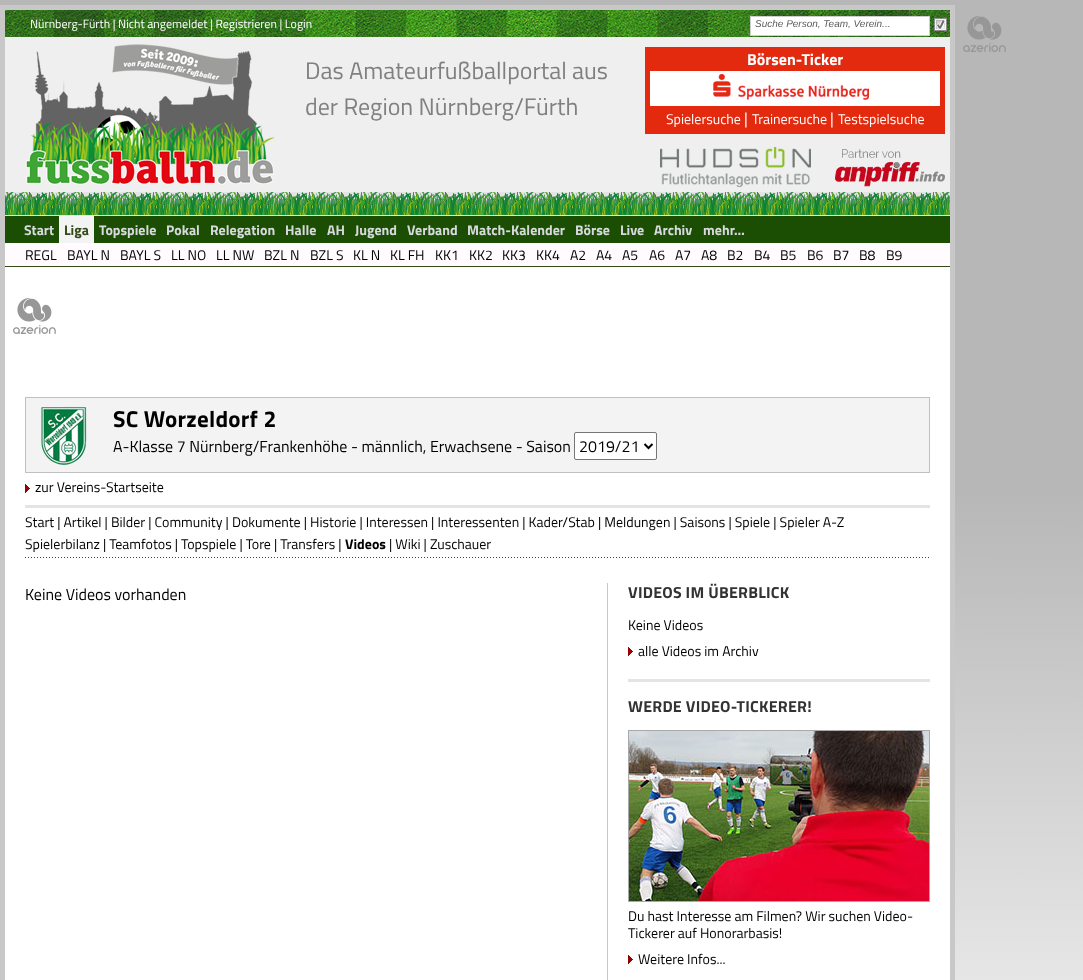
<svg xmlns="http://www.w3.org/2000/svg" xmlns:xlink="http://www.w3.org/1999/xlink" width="1083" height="980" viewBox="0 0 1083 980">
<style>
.cls-1{font:12px Titillium Web;fill:#ffffff}
.cls-2{font:italic 10px Liberation Sans;fill:#5c5c5c}
.cls-3{font:24px Titillium Web;fill:#808080}
.cls-4{font:bold 16px Titillium Web;fill:#ffffff}
.cls-5{font:14px Titillium Web;fill:#ffffff}
.cls-6{font:16px Titillium Web;fill:#ffffff}
.cls-7{font:bold 14px Titillium Web;fill:#d8d9df}
.cls-8{font:bold 14px Titillium Web;fill:#364a1a}
.cls-9{font:14px Titillium Web;fill:#000000}
.cls-10{font:bold 23px Titillium Web;letter-spacing:0.25px;fill:#000000}
.cls-11{font:16px Titillium Web;fill:#000000}
.cls-12{font:bold 14px Titillium Web;fill:#000000}
.cls-13{font:bold 16px Titillium Web;letter-spacing:0.25px;fill:#333333}
</style>
<defs>
<linearGradient id="g1" gradientUnits="userSpaceOnUse" x1="541" y1="0" x2="542" y2="980"><stop offset="0" stop-color="#b7b7b7"/><stop offset="0.5" stop-color="#b7b7b7"/><stop offset="1" stop-color="#e6e6e6"/></linearGradient>
</defs>
<rect width="100%" height="100%" fill="#ffffff"/>
<rect fill="url(#g1)" x="0" y="0" width="1083" height="980"/>
<rect fill="#ffffff" x="5" y="267" width="945" height="713"/>
<rect fill="none" stroke="#c8c8c8" stroke-width="5" x="2.5" y="7.5" width="950" height="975"/>
<image xlink:href="image0.png" x="5" y="10" width="945" height="27"/>
<rect fill="#ffffff" stroke="#cecece" x="750.5" y="16.5" width="179" height="19"/>
<image xlink:href="image1.png" x="934" y="18" width="13" height="13"/>
<rect fill="#e4e4e4" x="5" y="192" width="945" height="24"/>
<rect fill="#efefef" x="5" y="37" width="945" height="155"/>
<image xlink:href="image2.png" x="25" y="44" width="250" height="141"/>
<rect fill="#e32a0f" x="645" y="47" width="300" height="87"/>
<image xlink:href="image3.png" x="650" y="71" width="290" height="35"/>
<image xlink:href="image4.png" x="660" y="147" width="151" height="40"/>
<image xlink:href="image5.png" x="835" y="149" width="110" height="38"/>
<image xlink:href="image6.png" x="5" y="192" width="945" height="23"/>
<rect fill="#1b4e03" x="5" y="216" width="945" height="27"/>
<rect fill="#f3f3f3" x="59" y="216" width="35" height="27"/>
<rect fill="#fffbff" x="5" y="243" width="945" height="23"/>
<rect fill="#364a1a" x="5" y="266" width="945" height="1"/>
<image xlink:href="image7.png" x="13" y="298" width="43" height="36"/>
<rect fill="#f3f3f3" stroke="#c0c0c0" x="25.5" y="397.5" width="904" height="75"/>
<image xlink:href="image8.png" x="41" y="406" width="46" height="59"/>
<rect fill="#ffffff" stroke="#767676" x="574.5" y="432.5" width="82" height="27" rx="1.5"/>
<path fill="none" stroke="#000000" stroke-width="2" d="M644.5 444L648.5 448L652.5 444"/>
<image xlink:href="image9.png" x="25" y="484" width="5" height="9"/>
<rect fill="#e4e4e4" x="25" y="505" width="905" height="3"/>
<image xlink:href="image10.png" x="25" y="557" width="904" height="1"/>
<rect fill="#c8c8c8" x="607" y="583" width="1" height="397"/>
<image xlink:href="image9.png" x="628" y="647" width="5" height="9"/>
<rect fill="#e4e4e4" x="628" y="679" width="302" height="3"/>
<rect fill="none" stroke="#a9a9a9" x="628.5" y="730.5" width="301" height="171"/>
<image xlink:href="image11.png" x="629" y="731" width="300" height="170"/>
<image xlink:href="image9.png" x="628" y="955" width="5" height="9"/>
<image xlink:href="image12.png" x="963" y="16" width="43" height="36"/>
<text class="cls-1" x="30" y="28">Nürnberg-Fürth | Nicht angemeldet | Registrieren | Login</text>
<text class="cls-2" x="755" y="27">Suche Person, Team, Verein...</text>
<text class="cls-3"><tspan x="305" y="79">Das Amateurfußballportal aus</tspan><tspan x="305" y="115">der Region Nürnberg/Fürth</tspan></text>
<text class="cls-4" x="747" y="65">Börsen-Ticker</text>
<text class="cls-5" x="666" y="124">Spielersuche</text>
<text class="cls-6" x="744" y="124">|</text>
<text class="cls-5" x="752" y="124">Trainersuche</text>
<text class="cls-6" x="830" y="124">|</text>
<text class="cls-5" x="838" y="124">Testspielsuche</text>
<text class="cls-7" x="24" y="235">Start</text>
<text class="cls-8" x="64" y="235">Liga</text>
<text class="cls-7" x="99" y="235">Topspiele</text>
<text class="cls-7" x="166" y="235">Pokal</text>
<text class="cls-7" x="210" y="235">Relegation</text>
<text class="cls-7" x="285" y="235">Halle</text>
<text class="cls-7" x="327" y="235">AH</text>
<text class="cls-7" x="355" y="235">Jugend</text>
<text class="cls-7" x="407" y="235">Verband</text>
<text class="cls-7" x="467" y="235">Match-Kalender</text>
<text class="cls-7" x="575" y="235">Börse</text>
<text class="cls-7" x="620" y="235">Live</text>
<text class="cls-7" x="654" y="235">Archiv</text>
<text class="cls-7" x="703" y="235">mehr…</text>
<text class="cls-9" x="25" y="260">REGL</text>
<text class="cls-9" x="67" y="260">BAYL N</text>
<text class="cls-9" x="120" y="260">BAYL S</text>
<text class="cls-9" x="171" y="260">LL NO</text>
<text class="cls-9" x="216" y="260">LL NW</text>
<text class="cls-9" x="264" y="260">BZL N</text>
<text class="cls-9" x="310" y="260">BZL S</text>
<text class="cls-9" x="353" y="260">KL N</text>
<text class="cls-9" x="390" y="260">KL FH</text>
<text class="cls-9" x="435" y="260">KK1</text>
<text class="cls-9" x="469" y="260">KK2</text>
<text class="cls-9" x="502" y="260">KK3</text>
<text class="cls-9" x="536" y="260">KK4</text>
<text class="cls-9" x="570" y="260">A2</text>
<text class="cls-9" x="596" y="260">A4</text>
<text class="cls-9" x="622" y="260">A5</text>
<text class="cls-9" x="649" y="260">A6</text>
<text class="cls-9" x="675" y="260">A7</text>
<text class="cls-9" x="701" y="260">A8</text>
<text class="cls-9" x="727" y="260">B2</text>
<text class="cls-9" x="754" y="260">B4</text>
<text class="cls-9" x="780" y="260">B5</text>
<text class="cls-9" x="807" y="260">B6</text>
<text class="cls-9" x="833" y="260">B7</text>
<text class="cls-9" x="859" y="260">B8</text>
<text class="cls-9" x="886" y="260">B9</text>
<text class="cls-10" x="113" y="427">SC Worzeldorf 2</text>
<text class="cls-11" x="113" y="452">A-Klasse 7 Nürnberg/Frankenhöhe - männlich, Erwachsene - Saison</text>
<text class="cls-11" x="579" y="452">2019/21</text>
<text class="cls-9" x="35" y="492">zur Vereins-Startseite</text>
<text class="cls-9"><tspan x="25" y="527">Start | Artikel | Bilder | Community | Dokumente | Historie | Interessen | Interessenten | Kader/Stab | Meldungen | Saisons | Spiele | Spieler A-Z</tspan><tspan x="25" y="549">Spielerbilanz | Teamfotos | Topspiele | Tore | Transfers |</tspan></text>
<text class="cls-12" x="345" y="549">Videos</text>
<text class="cls-9" x="389" y="549">| Wiki | Zuschauer</text>
<text class="cls-11" x="25" y="600">Keine Videos vorhanden</text>
<text class="cls-13" x="628" y="598">VIDEOS IM ÜBERBLICK</text>
<text class="cls-9" x="628" y="630">Keine Videos</text>
<text class="cls-9" x="638" y="656">alle Videos im Archiv</text>
<text class="cls-13" x="628" y="712">WERDE VIDEO-TICKERER!</text>
<text class="cls-9"><tspan x="628" y="921">Du hast Interesse am Filmen? Wir suchen Video-</tspan><tspan x="628" y="938">Tickerer auf Honorarbasis!</tspan></text>
<text class="cls-9" x="638" y="964">Weitere Infos...</text>
</svg>
